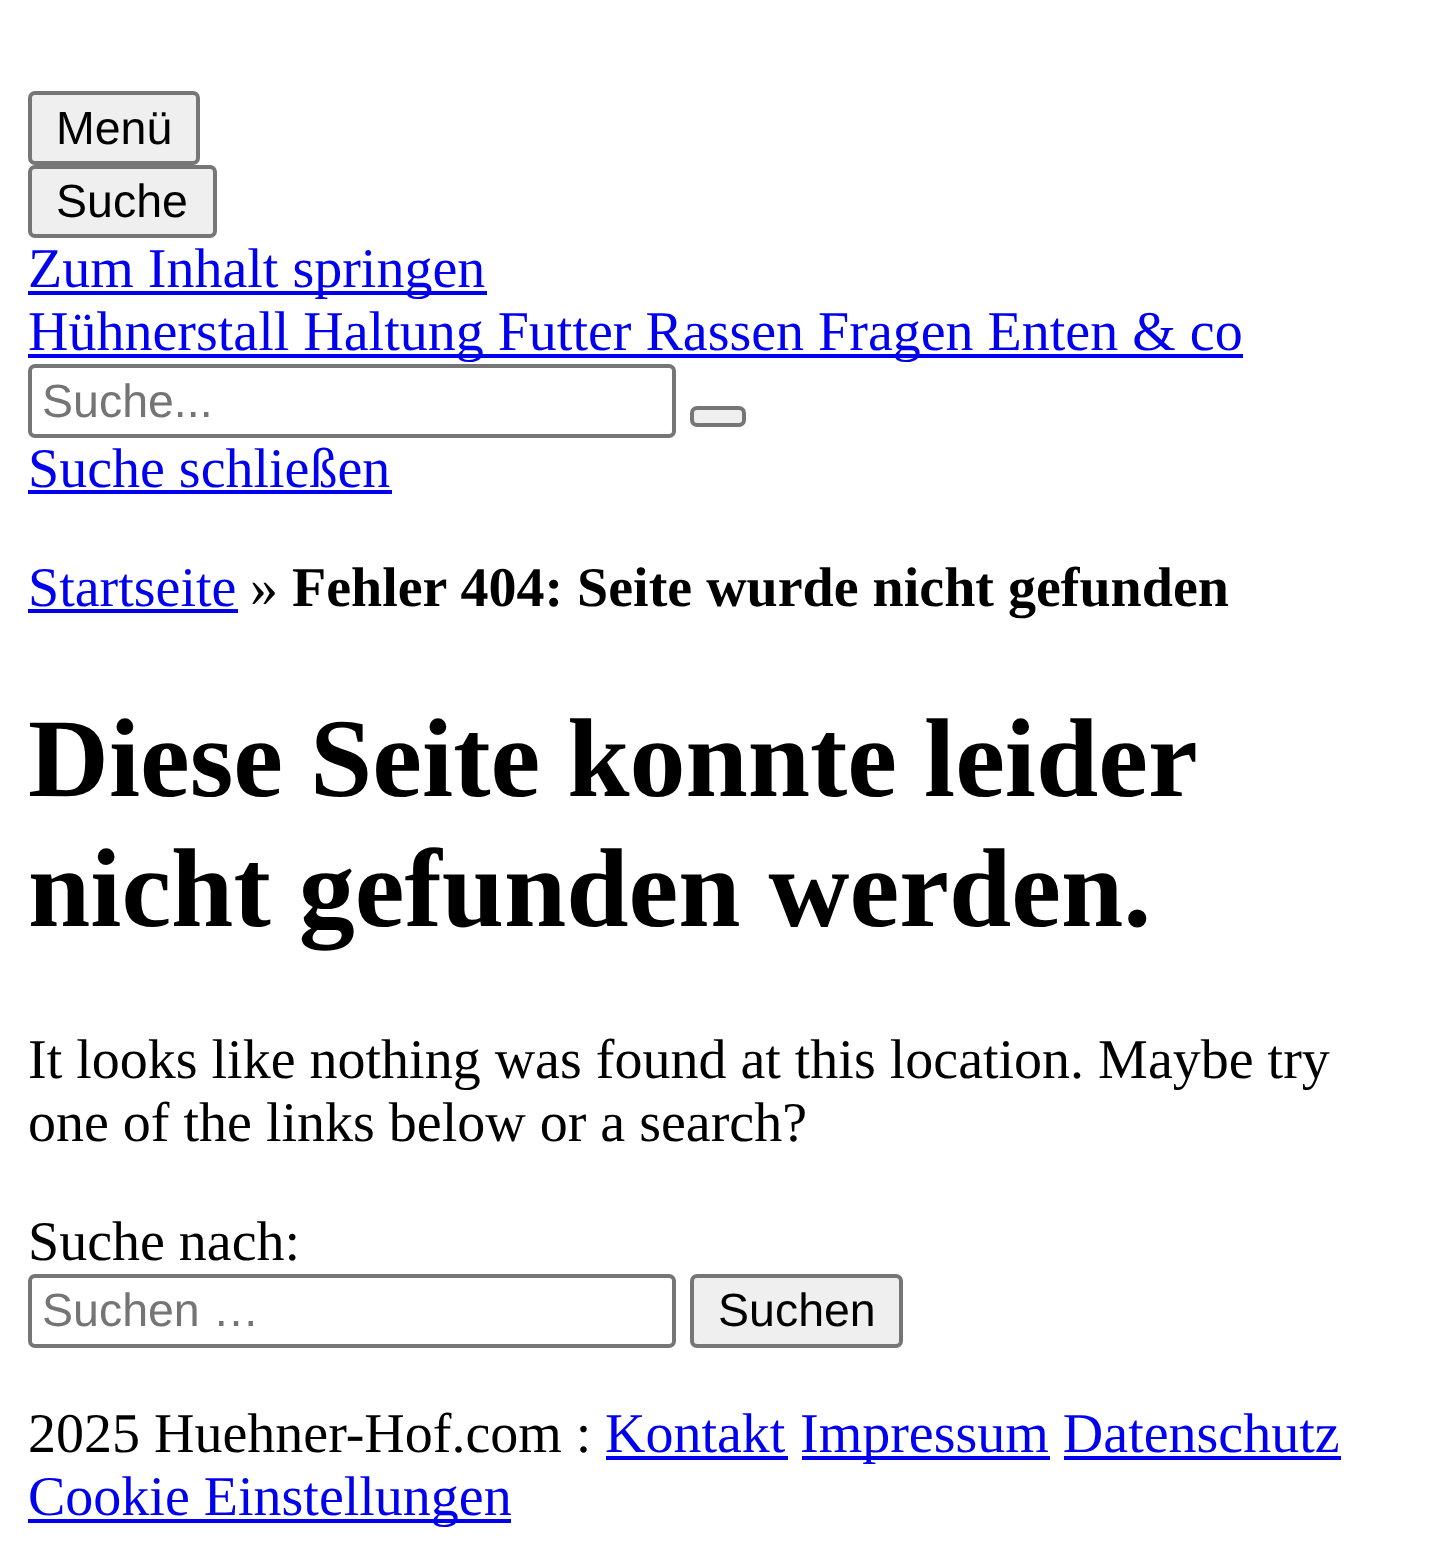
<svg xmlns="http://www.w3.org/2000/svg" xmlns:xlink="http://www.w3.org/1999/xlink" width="1437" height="1562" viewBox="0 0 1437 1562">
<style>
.cls-1{font:46.5px Liberation Sans;fill:#000000}
.cls-2{font:56px Liberation Serif;fill:#0000ee}
.cls-3{font:46.5px Liberation Sans;fill:#757575}
.cls-4{font:56px Liberation Serif;fill:#000000}
.cls-5{font:bold 56px Liberation Serif;fill:#000000}
.cls-6{font:bold 112px Liberation Serif;fill:#000000}
</style>
<rect width="100%" height="100%" fill="#ffffff"/>
<rect fill="#efefef" stroke="#767676" stroke-width="4" x="30" y="93" width="168" height="70" rx="5"/>
<rect fill="#efefef" stroke="#767676" stroke-width="4" x="30" y="167" width="185" height="69" rx="5"/>
<rect fill="#0000ee" x="28" y="291" width="459" height="4"/>
<rect fill="#0000ee" x="28" y="354" width="1215" height="4"/>
<rect fill="none" stroke="#767676" stroke-width="4" x="30" y="366" width="644" height="70" rx="5"/>
<rect fill="#efefef" stroke="#767676" stroke-width="4" x="692" y="408" width="52" height="17" rx="5"/>
<rect fill="#0000ee" x="28" y="490" width="364" height="4"/>
<rect fill="#0000ee" x="28" y="609" width="210" height="4"/>
<rect fill="none" stroke="#767676" stroke-width="4" x="30" y="1276" width="644" height="70" rx="5"/>
<rect fill="#efefef" stroke="#767676" stroke-width="4" x="692" y="1276" width="209" height="70" rx="5"/>
<rect fill="#0000ee" x="606" y="1456" width="182" height="4"/>
<rect fill="#0000ee" x="802" y="1456" width="248" height="4"/>
<rect fill="#0000ee" x="1064" y="1456" width="277" height="4"/>
<rect fill="#0000ee" x="28" y="1519" width="483" height="4"/>
<text class="cls-1"><tspan x="56" y="144">Menü</tspan><tspan x="56" y="217">Suche</tspan></text>
<text class="cls-2"><tspan x="28" y="287">Zum Inhalt springen</tspan><tspan x="28" y="350">Hühnerstall Haltung Futter Rassen Fragen Enten &amp; co</tspan></text>
<text class="cls-3" x="42" y="417">Suche...</text>
<text class="cls-2" x="28" y="487">Suche schließen</text>
<text class="cls-2" x="28" y="606">Startseite</text>
<text class="cls-4" x="250" y="606">»</text>
<text class="cls-5" x="292" y="606">Fehler 404: Seite wurde nicht gefunden</text>
<text class="cls-6"><tspan x="28" y="796" word-spacing="-1">Diese Seite konnte leider</tspan><tspan x="28" y="926">nicht gefunden werden.</tspan></text>
<text class="cls-4"><tspan x="28" y="1078">It looks like nothing was found at this location. Maybe try</tspan><tspan x="28" y="1141">one of the links below or a search?</tspan></text>
<text class="cls-4" x="28" y="1260">Suche nach:</text>
<text class="cls-3" x="42" y="1326">Suchen …</text>
<text class="cls-1" x="718" y="1326">Suchen</text>
<text class="cls-4" x="28" y="1452">2025 Huehner-Hof.com :</text>
<text class="cls-2" x="605" y="1452">Kontakt</text>
<text class="cls-2" x="800" y="1452">Impressum Datenschutz</text>
<text class="cls-2" x="28" y="1515">Cookie Einstellungen</text>
</svg>
